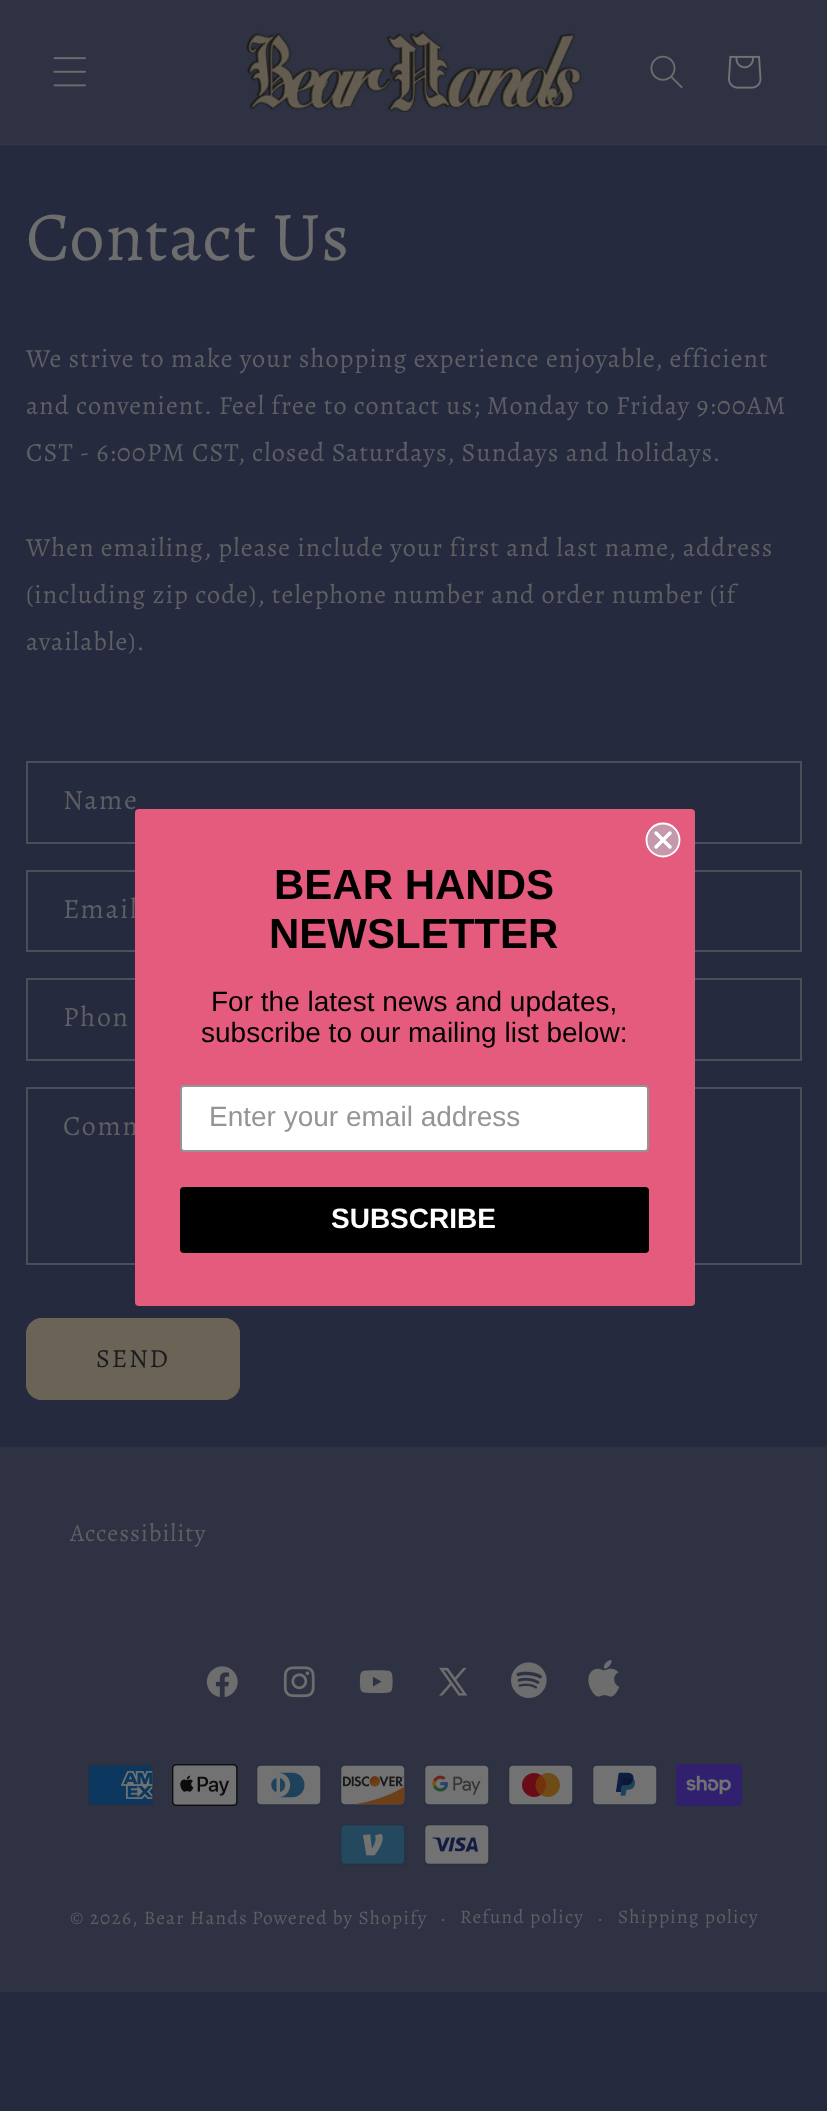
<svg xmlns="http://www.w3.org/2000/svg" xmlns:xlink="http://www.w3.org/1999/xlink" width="827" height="2111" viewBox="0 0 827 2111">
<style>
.cls-1{font:70px Alegreya;letter-spacing:1.05px;fill:#6d6d6d}
.cls-2{font:26.25px Alegreya;letter-spacing:1.05px;fill:#5e5e63}
.cls-3{font:28px Alegreya;letter-spacing:1.75px;fill:#5e5e63}
.cls-4{font:26.25px Alegreya;letter-spacing:1.75px;fill:#1a1c20}
.cls-5{font:bold 42px Liberation Sans;fill:#000000}
.cls-6{font:28px Liberation Sans;fill:#000000}
.cls-7{font:28px Liberation Sans;fill:#949596}
.cls-8{font:bold 28px Liberation Sans;fill:#ffffff}
.cls-9{font:24.5px Alegreya;letter-spacing:1.05px;fill:#5e5e63}
.cls-10{font:19.25px Alegreya;letter-spacing:1.25px;fill:#5e5e63}
.cls-11{font:18px Alegreya;letter-spacing:1.25px;fill:#5e5e63}
</style>
<rect width="100%" height="100%" fill="#252a3e"/>
<rect fill="#2b3042" x="0" y="145" width="827" height="1"/>
<rect fill="#2e3243" x="0" y="0" width="827" height="144"/>
<rect fill="#343646" x="0" y="144" width="827" height="1"/>
<image xlink:href="image0.png" x="53" y="57" width="33" height="30"/>
<image xlink:href="image1.png" x="246" y="31" width="335" height="81"/>
<image xlink:href="image2.png" x="650" y="55" width="33" height="34"/>
<image xlink:href="image3.png" x="728" y="55" width="34" height="34"/>
<rect fill="none" stroke="#4d4f58" stroke-width="2" x="27" y="762" width="774" height="81"/>
<rect fill="none" stroke="#4d4f58" stroke-width="2" x="27" y="871" width="774" height="80"/>
<rect fill="none" stroke="#4d4f58" stroke-width="2" x="27" y="979" width="774" height="81"/>
<rect fill="none" stroke="#4d4f58" stroke-width="2" x="27" y="1088" width="774" height="176"/>
<rect fill="#6b6356" x="26" y="1318" width="214" height="82" rx="16"/>
<rect fill="none" stroke="#6b6356" stroke-width="2" x="27" y="1319" width="212" height="80" rx="15"/>
<rect fill="#2e3243" x="0" y="1447" width="827" height="545"/>
<image xlink:href="image4.png" x="206" y="1666" width="32" height="32"/>
<image xlink:href="image5.png" x="283" y="1666" width="32" height="32"/>
<image xlink:href="image6.png" x="359" y="1670" width="34" height="24"/>
<image xlink:href="image7.png" x="439" y="1667" width="29" height="29"/>
<image xlink:href="image8.png" x="511" y="1662" width="36" height="36"/>
<image xlink:href="image9.png" x="588" y="1659" width="32" height="38"/>
<image xlink:href="image10.png" x="88" y="1764" width="66" height="42"/>
<image xlink:href="image11.png" x="172" y="1764" width="66" height="42"/>
<image xlink:href="image12.png" x="256" y="1764" width="66" height="42"/>
<image xlink:href="image13.png" x="340" y="1764" width="66" height="42"/>
<image xlink:href="image14.png" x="424" y="1764" width="66" height="42"/>
<image xlink:href="image15.png" x="508" y="1764" width="66" height="42"/>
<image xlink:href="image16.png" x="592" y="1764" width="66" height="42"/>
<image xlink:href="image17.png" x="676" y="1764" width="66" height="42"/>
<image xlink:href="image18.png" x="340" y="1824" width="66" height="42"/>
<image xlink:href="image19.png" x="424" y="1824" width="66" height="42"/>
<text class="cls-1" x="26" y="260">Contact Us</text>
<text class="cls-2"><tspan x="26" y="367">We strive to make your shopping experience enjoyable, efficient</tspan><tspan x="26" y="414">and convenient. Feel free to contact us; Monday to Friday 9:00AM</tspan><tspan x="26" y="461">CST - 6:00PM CST, closed Saturdays, Sundays and holidays.</tspan></text>
<text class="cls-2"><tspan x="26" y="556">When emailing, please include your first and last name, address</tspan><tspan x="26" y="603">(including zip code), telephone number and order number (if</tspan><tspan x="26" y="650">available).</tspan></text>
<text class="cls-3" x="63" y="809">Name</text>
<text class="cls-3" x="63" y="918">Email</text>
<text class="cls-3" x="63" y="1026">Phon</text>
<text class="cls-3" x="63" y="1135">Comm</text>
<text class="cls-4" x="96" y="1367">SEND</text>
<rect fill="#e55b7e" x="135" y="809" width="560" height="497" rx="4"/>
<circle fill="#c599ab" stroke="#ffffff" stroke-width="1.8" cx="663" cy="840" r="16.5"/>
<path fill="none" stroke="#ffffff" stroke-width="3.5" stroke-linecap="round" stroke-linejoin="round" d="M656 833L670 847M656 847L670 833Z"/>
<text class="cls-5" x="274" y="899">BEAR HANDS</text>
<text class="cls-5" x="269" y="948">NEWSLETTER</text>
<text class="cls-6" x="211" y="1011">For the latest news and updates,</text>
<text class="cls-6" x="201" y="1042">subscribe to our mailing list below:</text>
<rect fill="#ffffff" stroke="#949596" stroke-width="2" x="181" y="1086" width="467" height="65" rx="3"/>
<text class="cls-7" x="209" y="1126">Enter your email address</text>
<rect fill="#000000" x="180" y="1187" width="469" height="66" rx="4"/>
<text class="cls-8" x="331" y="1228">SUBSCRIBE</text>
<text class="cls-9" x="70" y="1541">Accessibility</text>
<text class="cls-10" x="70" y="1924">© 2026, Bear Hands</text>
<text class="cls-10" x="252" y="1924">Powered by Shopify</text>
<text class="cls-11" x="441" y="1924">·</text>
<text class="cls-10" x="460" y="1923">Refund policy</text>
<text class="cls-11" x="598" y="1924">·</text>
<text class="cls-10" x="618" y="1923">Shipping policy</text>
</svg>
